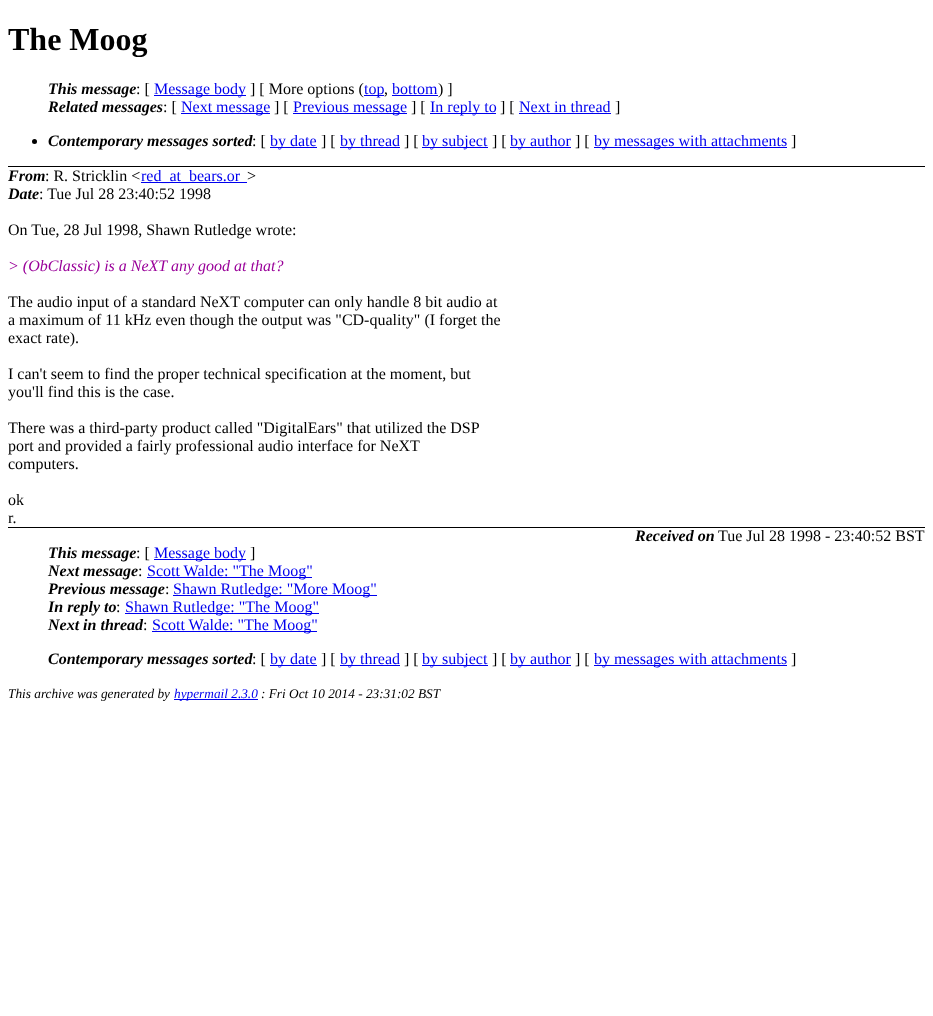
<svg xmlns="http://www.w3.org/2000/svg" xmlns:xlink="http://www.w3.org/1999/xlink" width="933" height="1016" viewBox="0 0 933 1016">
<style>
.cls-1{font:bold 32px Liberation Serif;fill:#000000}
.cls-2{font:italic bold 16px Liberation Serif;fill:#000000}
.cls-3{font:16px Liberation Serif;fill:#000000}
.cls-4{font:16px Liberation Serif;fill:#0000ee}
.cls-5{font:italic 16px Liberation Serif;fill:#990099}
.cls-6{font:italic 13.3px Liberation Serif;fill:#000000}
.cls-7{font:italic 13.3px Liberation Serif;fill:#0000ee}
</style>
<rect width="100%" height="100%" fill="#ffffff"/>
<rect fill="#000000" x="8" y="166" width="917" height="1"/>
<rect fill="#0000ee" x="154" y="95" width="92" height="1"/>
<rect fill="#0000ee" x="364" y="95" width="20" height="1"/>
<rect fill="#0000ee" x="392" y="95" width="46" height="1"/>
<rect fill="#0000ee" x="181" y="113" width="89" height="1"/>
<rect fill="#0000ee" x="293" y="113" width="114" height="1"/>
<rect fill="#0000ee" x="430" y="113" width="66" height="1"/>
<rect fill="#0000ee" x="519" y="113" width="92" height="1"/>
<circle fill="#000000" cx="34.5" cy="141.5" r="2.5"/>
<rect fill="#0000ee" x="270" y="147" width="47" height="1"/>
<rect fill="#0000ee" x="340" y="147" width="60" height="1"/>
<rect fill="#0000ee" x="422" y="147" width="66" height="1"/>
<rect fill="#0000ee" x="510" y="147" width="61" height="1"/>
<rect fill="#0000ee" x="594" y="147" width="193" height="1"/>
<rect fill="#0000ee" x="141" y="182" width="106" height="1"/>
<rect fill="#000000" x="8" y="527" width="917" height="1"/>
<rect fill="#0000ee" x="154" y="559" width="92" height="1"/>
<rect fill="#0000ee" x="147" y="577" width="165" height="1"/>
<rect fill="#0000ee" x="173" y="595" width="204" height="1"/>
<rect fill="#0000ee" x="125" y="613" width="194" height="1"/>
<rect fill="#0000ee" x="152" y="631" width="165" height="1"/>
<rect fill="#0000ee" x="270" y="665" width="47" height="1"/>
<rect fill="#0000ee" x="340" y="665" width="60" height="1"/>
<rect fill="#0000ee" x="422" y="665" width="66" height="1"/>
<rect fill="#0000ee" x="510" y="665" width="61" height="1"/>
<rect fill="#0000ee" x="594" y="665" width="193" height="1"/>
<rect fill="#0000ee" x="174" y="699" width="84" height="1"/>
<text class="cls-1" x="8" y="50">The Moog</text>
<text class="cls-2" x="48" y="94">This message</text>
<text class="cls-3" x="136" y="94">: [</text>
<text class="cls-4" x="154" y="94">Message body</text>
<text class="cls-3" x="250" y="94">] [ More options (</text>
<text class="cls-4" x="364" y="94">top</text>
<text class="cls-3" x="384" y="94">,</text>
<text class="cls-4" x="392" y="94">bottom</text>
<text class="cls-3" x="438" y="94">) ]</text>
<text class="cls-2" x="48" y="112">Related messages</text>
<text class="cls-3" x="163" y="112">: [</text>
<text class="cls-4" x="181" y="112">Next message</text>
<text class="cls-3" x="274" y="112">] [</text>
<text class="cls-4" x="293" y="112">Previous message</text>
<text class="cls-3" x="411" y="112">] [</text>
<text class="cls-4" x="430" y="112">In reply to</text>
<text class="cls-3" x="500" y="112">] [</text>
<text class="cls-4" x="519" y="112">Next in thread</text>
<text class="cls-3" x="615" y="112">]</text>
<text class="cls-2" x="48" y="146">Contemporary messages sorted</text>
<text class="cls-3" x="252" y="146">: [</text>
<text class="cls-4" x="270" y="146">by date</text>
<text class="cls-3" x="321" y="146">] [</text>
<text class="cls-4" x="340" y="146">by thread</text>
<text class="cls-3" x="404" y="146">] [</text>
<text class="cls-4" x="422" y="146">by subject</text>
<text class="cls-3" x="492" y="146">] [</text>
<text class="cls-4" x="510" y="146">by author</text>
<text class="cls-3" x="575" y="146">] [</text>
<text class="cls-4" x="594" y="146">by messages with attachments</text>
<text class="cls-3" x="791" y="146">]</text>
<text class="cls-2" x="8" y="181">From</text>
<text class="cls-3" x="45" y="181">: R. Stricklin &lt;</text>
<text class="cls-4" x="141" y="181">red_at_bears.or</text>
<text class="cls-3" x="247" y="181">&gt;</text>
<text class="cls-2" x="8" y="199">Date</text>
<text class="cls-3" x="39" y="199">: Tue Jul 28 23:40:52 1998</text>
<text class="cls-3" x="8" y="235">On Tue, 28 Jul 1998, Shawn Rutledge wrote:</text>
<text class="cls-5" x="8" y="271">&gt; (ObClassic) is a NeXT any good at that?</text>
<text class="cls-3"><tspan x="8" y="307">The audio input of a standard NeXT computer can only handle 8 bit audio at</tspan><tspan x="8" y="325">a maximum of 11 kHz even though the output was "CD-quality" (I forget the</tspan><tspan x="8" y="343">exact rate).</tspan></text>
<text class="cls-3"><tspan x="8" y="379">I can't seem to find the proper technical specification at the moment, but</tspan><tspan x="8" y="397">you'll find this is the case.</tspan></text>
<text class="cls-3"><tspan x="8" y="433">There was a third-party product called "DigitalEars" that utilized the DSP</tspan><tspan x="8" y="451">port and provided a fairly professional audio interface for NeXT</tspan><tspan x="8" y="469">computers.</tspan></text>
<text class="cls-3"><tspan x="8" y="505">ok</tspan><tspan x="8" y="523">r.</tspan></text>
<text class="cls-2" x="635" y="541">Received on</text>
<text class="cls-3" x="718" y="541">Tue Jul 28 1998 - 23:40:52 BST</text>
<text class="cls-2" x="48" y="558">This message</text>
<text class="cls-3" x="136" y="558">: [</text>
<text class="cls-4" x="154" y="558">Message body</text>
<text class="cls-3" x="250" y="558">]</text>
<text class="cls-2" x="48" y="576">Next message</text>
<text class="cls-3" x="138" y="576">:</text>
<text class="cls-4" x="147" y="576">Scott Walde: "The Moog"</text>
<text class="cls-2" x="48" y="594">Previous message</text>
<text class="cls-3" x="165" y="594">:</text>
<text class="cls-4" x="173" y="594">Shawn Rutledge: "More Moog"</text>
<text class="cls-2" x="48" y="612">In reply to</text>
<text class="cls-3" x="116" y="612">:</text>
<text class="cls-4" x="125" y="612">Shawn Rutledge: "The Moog"</text>
<text class="cls-2" x="48" y="630">Next in thread</text>
<text class="cls-3" x="143" y="630">:</text>
<text class="cls-4" x="152" y="630">Scott Walde: "The Moog"</text>
<text class="cls-2" x="48" y="664">Contemporary messages sorted</text>
<text class="cls-3" x="252" y="664">: [</text>
<text class="cls-4" x="270" y="664">by date</text>
<text class="cls-3" x="321" y="664">] [</text>
<text class="cls-4" x="340" y="664">by thread</text>
<text class="cls-3" x="404" y="664">] [</text>
<text class="cls-4" x="422" y="664">by subject</text>
<text class="cls-3" x="492" y="664">] [</text>
<text class="cls-4" x="510" y="664">by author</text>
<text class="cls-3" x="575" y="664">] [</text>
<text class="cls-4" x="594" y="664">by messages with attachments</text>
<text class="cls-3" x="791" y="664">]</text>
<text class="cls-6" x="8" y="698">This archive was generated by</text>
<text class="cls-7" x="174" y="698">hypermail 2.3.0</text>
<text class="cls-6" x="261" y="698">: Fri Oct 10 2014 - 23:31:02 BST</text>
</svg>
